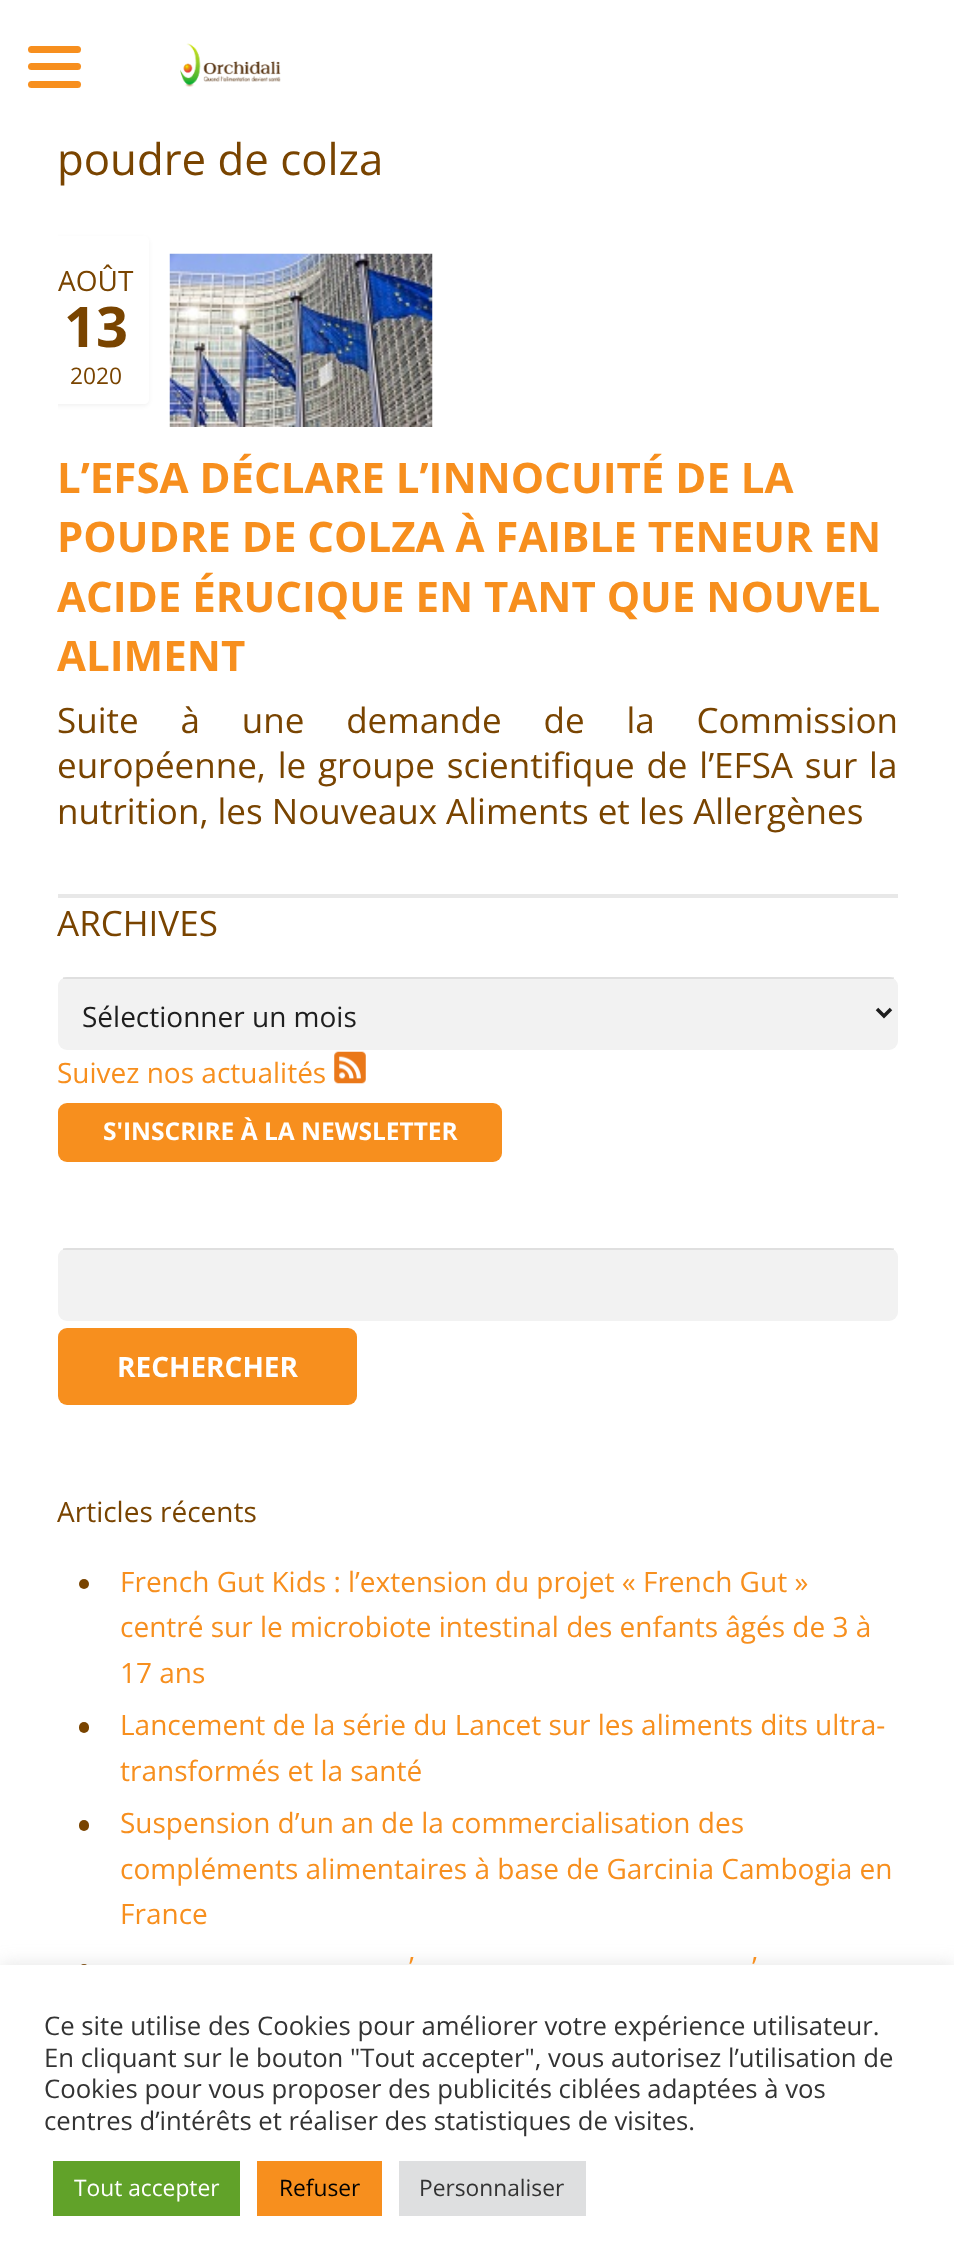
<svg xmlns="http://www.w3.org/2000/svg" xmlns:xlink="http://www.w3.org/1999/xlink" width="954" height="2267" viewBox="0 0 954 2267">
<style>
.cls-1{font:43.75px Open Sans;fill:#794400}
.cls-2{font:28px Open Sans;fill:#794400}
.cls-3{font:bold 56px Open Sans;fill:#794400}
.cls-4{font:22.75px Open Sans;fill:#794400}
.cls-5{font:35px Open Sans;fill:#794400}
.cls-6{font:bold 42px Open Sans;fill:#f78f1e}
.cls-7{font:28px Open Sans;fill:#1e1e1e}
.cls-8{font:28px Open Sans;fill:#f78f1e}
.cls-9{font:bold 24.5px Open Sans;fill:#ffffff}
.cls-10{font:bold 28px Open Sans;fill:#ffffff}
.cls-11{font:25.7px Open Sans;fill:#333333}
.cls-12{font:22.75px Open Sans;fill:#ffffff}
.cls-13{font:22.75px Open Sans;fill:#020202}
.cls-14{font:22.75px Open Sans;fill:#333333}
</style>
<defs>
<clipPath id="clip1"><rect x="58" y="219" width="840" height="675"/></clipPath>
</defs>
<rect width="100%" height="100%" fill="#ffffff"/>
<rect fill="#f78f1e" x="28" y="46" width="53" height="7" rx="3.5"/>
<rect fill="#f78f1e" x="28" y="63" width="53" height="7" rx="3.5"/>
<rect fill="#f78f1e" x="28" y="81" width="53" height="7" rx="3.5"/>
<image xlink:href="image0.png" x="180" y="43" width="101" height="44"/>
<rect fill="#e8e8e8" x="58" y="894" width="840" height="4"/>
<g clip-path="url(#clip1)">
<rect fill="#000000" fill-opacity="0.05" filter="blur(2px)" x="44" y="238" width="105" height="168" rx="5"/>
</g>
<path fill="#ffffff" d="M58 236H144C147 236 149 238 149 241V399C149 402 147 404 144 404H58Z"/>
<image xlink:href="image1.png" x="169" y="253" width="264" height="174"/>
<rect fill="#f2f2f2" x="58" y="977" width="840" height="73" rx="9"/>
<rect fill="#000000" fill-opacity="0.08" x="63" y="977" width="831" height="2"/>
<path fill="none" stroke="#1e1e1e" stroke-width="3.5" d="M877 1009L884 1016L891 1009"/>
<image xlink:href="image2.png" x="334" y="1051" width="32" height="33"/>
<rect fill="#f78f1e" x="58" y="1103" width="444" height="59" rx="9"/>
<rect fill="#f2f2f2" x="58" y="1248" width="840" height="73" rx="9"/>
<rect fill="#000000" fill-opacity="0.08" x="63" y="1248" width="831" height="2"/>
<rect fill="#f78f1e" x="58" y="1328" width="299" height="77" rx="9"/>
<circle fill="#794400" cx="84" cy="1584" r="5"/>
<rect fill="#794400" x="79" y="1722" width="10" height="11" rx="5"/>
<rect fill="#794400" x="79" y="1820" width="10" height="11" rx="5"/>
<circle fill="#794400" cx="84" cy="1969" r="5"/>
<rect fill="#acabab" fill-opacity="0.3" filter="blur(9px)" x="0" y="1964" width="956" height="302"/>
<rect fill="#ffffff" x="0" y="1965" width="954" height="302"/>
<rect fill="#61a229" x="53" y="2161" width="187" height="55"/>
<rect fill="#f78f1e" x="257" y="2161" width="125" height="55"/>
<rect fill="#dedfe0" x="399" y="2161" width="187" height="55"/>
<text class="cls-1" x="57" y="175">poudre de colza</text>
<text class="cls-2" x="58" y="291">AOÛT</text>
<text class="cls-3" x="64" y="347">13</text>
<text class="cls-4" x="70" y="384">2020</text>
<text class="cls-5"><tspan x="57" y="733" word-spacing="32.75">Suite à une demande de la Commission</tspan><tspan x="57" y="778" word-spacing="2.75">européenne, le groupe scientifique de l’EFSA sur la</tspan><tspan x="57" y="824">nutrition, les Nouveaux Aliments et les Allergènes</tspan></text>
<text class="cls-6"><tspan x="57" y="493">L’EFSA DÉCLARE L’INNOCUITÉ DE LA</tspan><tspan x="57" y="552">POUDRE DE COLZA À FAIBLE TENEUR EN</tspan><tspan x="57" y="612">ACIDE ÉRUCIQUE EN TANT QUE NOUVEL</tspan><tspan x="57" y="671">ALIMENT</tspan></text>
<text class="cls-5" x="57" y="936">ARCHIVES</text>
<text class="cls-7" x="82" y="1027">Sélectionner un mois</text>
<text class="cls-8" x="57" y="1083">Suivez nos actualités</text>
<text class="cls-9" x="103" y="1140">S'INSCRIRE À LA NEWSLETTER</text>
<text class="cls-10" x="117" y="1377">RECHERCHER</text>
<text class="cls-2" x="57" y="1522">Articles récents</text>
<text class="cls-8"><tspan x="120" y="1592">French Gut Kids : l’extension du projet « French Gut »</tspan><tspan x="120" y="1637">centré sur le microbiote intestinal des enfants âgés de 3 à</tspan><tspan x="120" y="1683">17 ans</tspan><tspan x="120" y="1735">Lancement de la série du Lancet sur les aliments dits ultra-</tspan><tspan x="120" y="1781">transformés et la santé</tspan><tspan x="120" y="1833">Suspension d’un an de la commercialisation des</tspan><tspan x="120" y="1879">compléments alimentaires à base de Garcinia Cambogia en</tspan><tspan x="120" y="1924">France</tspan></text>
<text class="cls-8" x="409" y="1977">’</text>
<text class="cls-8" x="752" y="1977">’</text>
<text class="cls-11"><tspan x="44" y="2035">Ce site utilise des Cookies pour améliorer votre expérience utilisateur.</tspan><tspan x="44" y="2067">En cliquant sur le bouton "Tout accepter", vous autorisez l’utilisation de</tspan><tspan x="44" y="2098">Cookies pour vous proposer des publicités ciblées adaptées à vos</tspan><tspan x="44" y="2130">centres d’intérêts et réaliser des statistiques de visites.</tspan></text>
<text class="cls-12" x="74" y="2196">Tout accepter</text>
<text class="cls-13" x="279" y="2196">Refuser</text>
<text class="cls-14" x="419" y="2196">Personnaliser</text>
</svg>
